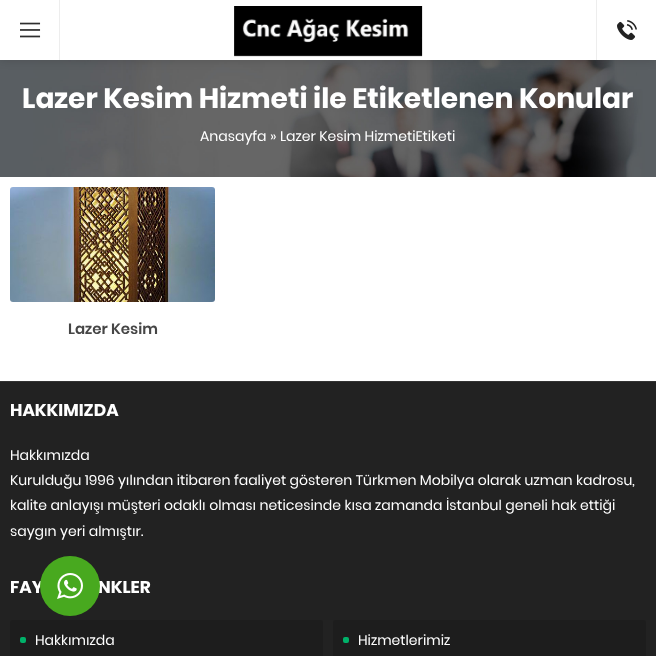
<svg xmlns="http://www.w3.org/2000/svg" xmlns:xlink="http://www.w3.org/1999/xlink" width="656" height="656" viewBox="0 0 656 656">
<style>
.cls-1{font:bold 28px Poppins;fill:#ffffff}
.cls-2{font:14px Poppins;fill:#ffffff}
.cls-3{font:600 15px Poppins;fill:#464646}
.cls-4{font:bold 17px Poppins;fill:#ffffff}
</style>
<rect width="100%" height="100%" fill="#ffffff"/>
<image xlink:href="image3.png" x="0" y="60" width="656" height="117"/>
<rect fill="#000000" fill-opacity="0.15" filter="blur(5px)" x="0" y="0" width="656" height="60"/>
<rect fill="#ffffff" x="0" y="0" width="596" height="60"/>
<rect fill="#ededed" x="59" y="0" width="1" height="60"/>
<image xlink:href="image0.png" x="20" y="22" width="21" height="16"/>
<image xlink:href="image1.png" x="234" y="6" width="189" height="51"/>
<rect fill="#ededed" x="596" y="0" width="1" height="60"/>
<rect fill="#ffffff" x="597" y="0" width="59" height="60"/>
<image xlink:href="image2.png" x="617" y="20" width="20" height="20"/>
<image xlink:href="image4.png" x="10" y="187" width="205" height="115"/>
<rect fill="#222222" x="0" y="382" width="656" height="274"/>
<rect fill="#333333" x="0" y="381" width="656" height="1"/>
<rect fill="#1d1d1d" x="10" y="620" width="313" height="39" rx="3"/>
<rect fill="#00b169" x="20" y="637" width="6" height="6" rx="2"/>
<rect fill="#1d1d1d" x="333" y="620" width="313" height="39" rx="3"/>
<rect fill="#00b169" x="343" y="637" width="6" height="6" rx="2"/>
<text class="cls-1" x="22" y="108">Lazer Kesim Hizmeti ile Etiketlenen Konular</text>
<text class="cls-2" x="200" y="141">Anasayfa » Lazer Kesim HizmetiEtiketi</text>
<text class="cls-3" x="68" y="334">Lazer Kesim</text>
<text class="cls-4" x="10" y="416">HAKKIMIZDA</text>
<text class="cls-2"><tspan x="10" y="460">Hakkımızda</tspan><tspan x="10" y="485">Kurulduğu 1996 yılından itibaren faaliyet gösteren Türkmen Mobilya olarak uzman kadrosu,</tspan><tspan x="10" y="510">kalite anlayışı müşteri odaklı olması neticesinde kısa zamanda İstanbul geneli hak ettiği</tspan><tspan x="10" y="536">saygın yeri almıştır.</tspan></text>
<text class="cls-4" x="10" y="593">FAY</text>
<text class="cls-4" x="98" y="593">NKLER</text>
<text class="cls-2" x="35" y="645">Hakkımızda</text>
<text class="cls-2" x="358" y="645">Hizmetlerimiz</text>
<circle fill="#48a91f" cx="70" cy="586" r="30"/>
<image xlink:href="image5.png" x="57" y="573" width="26" height="26"/>
</svg>
